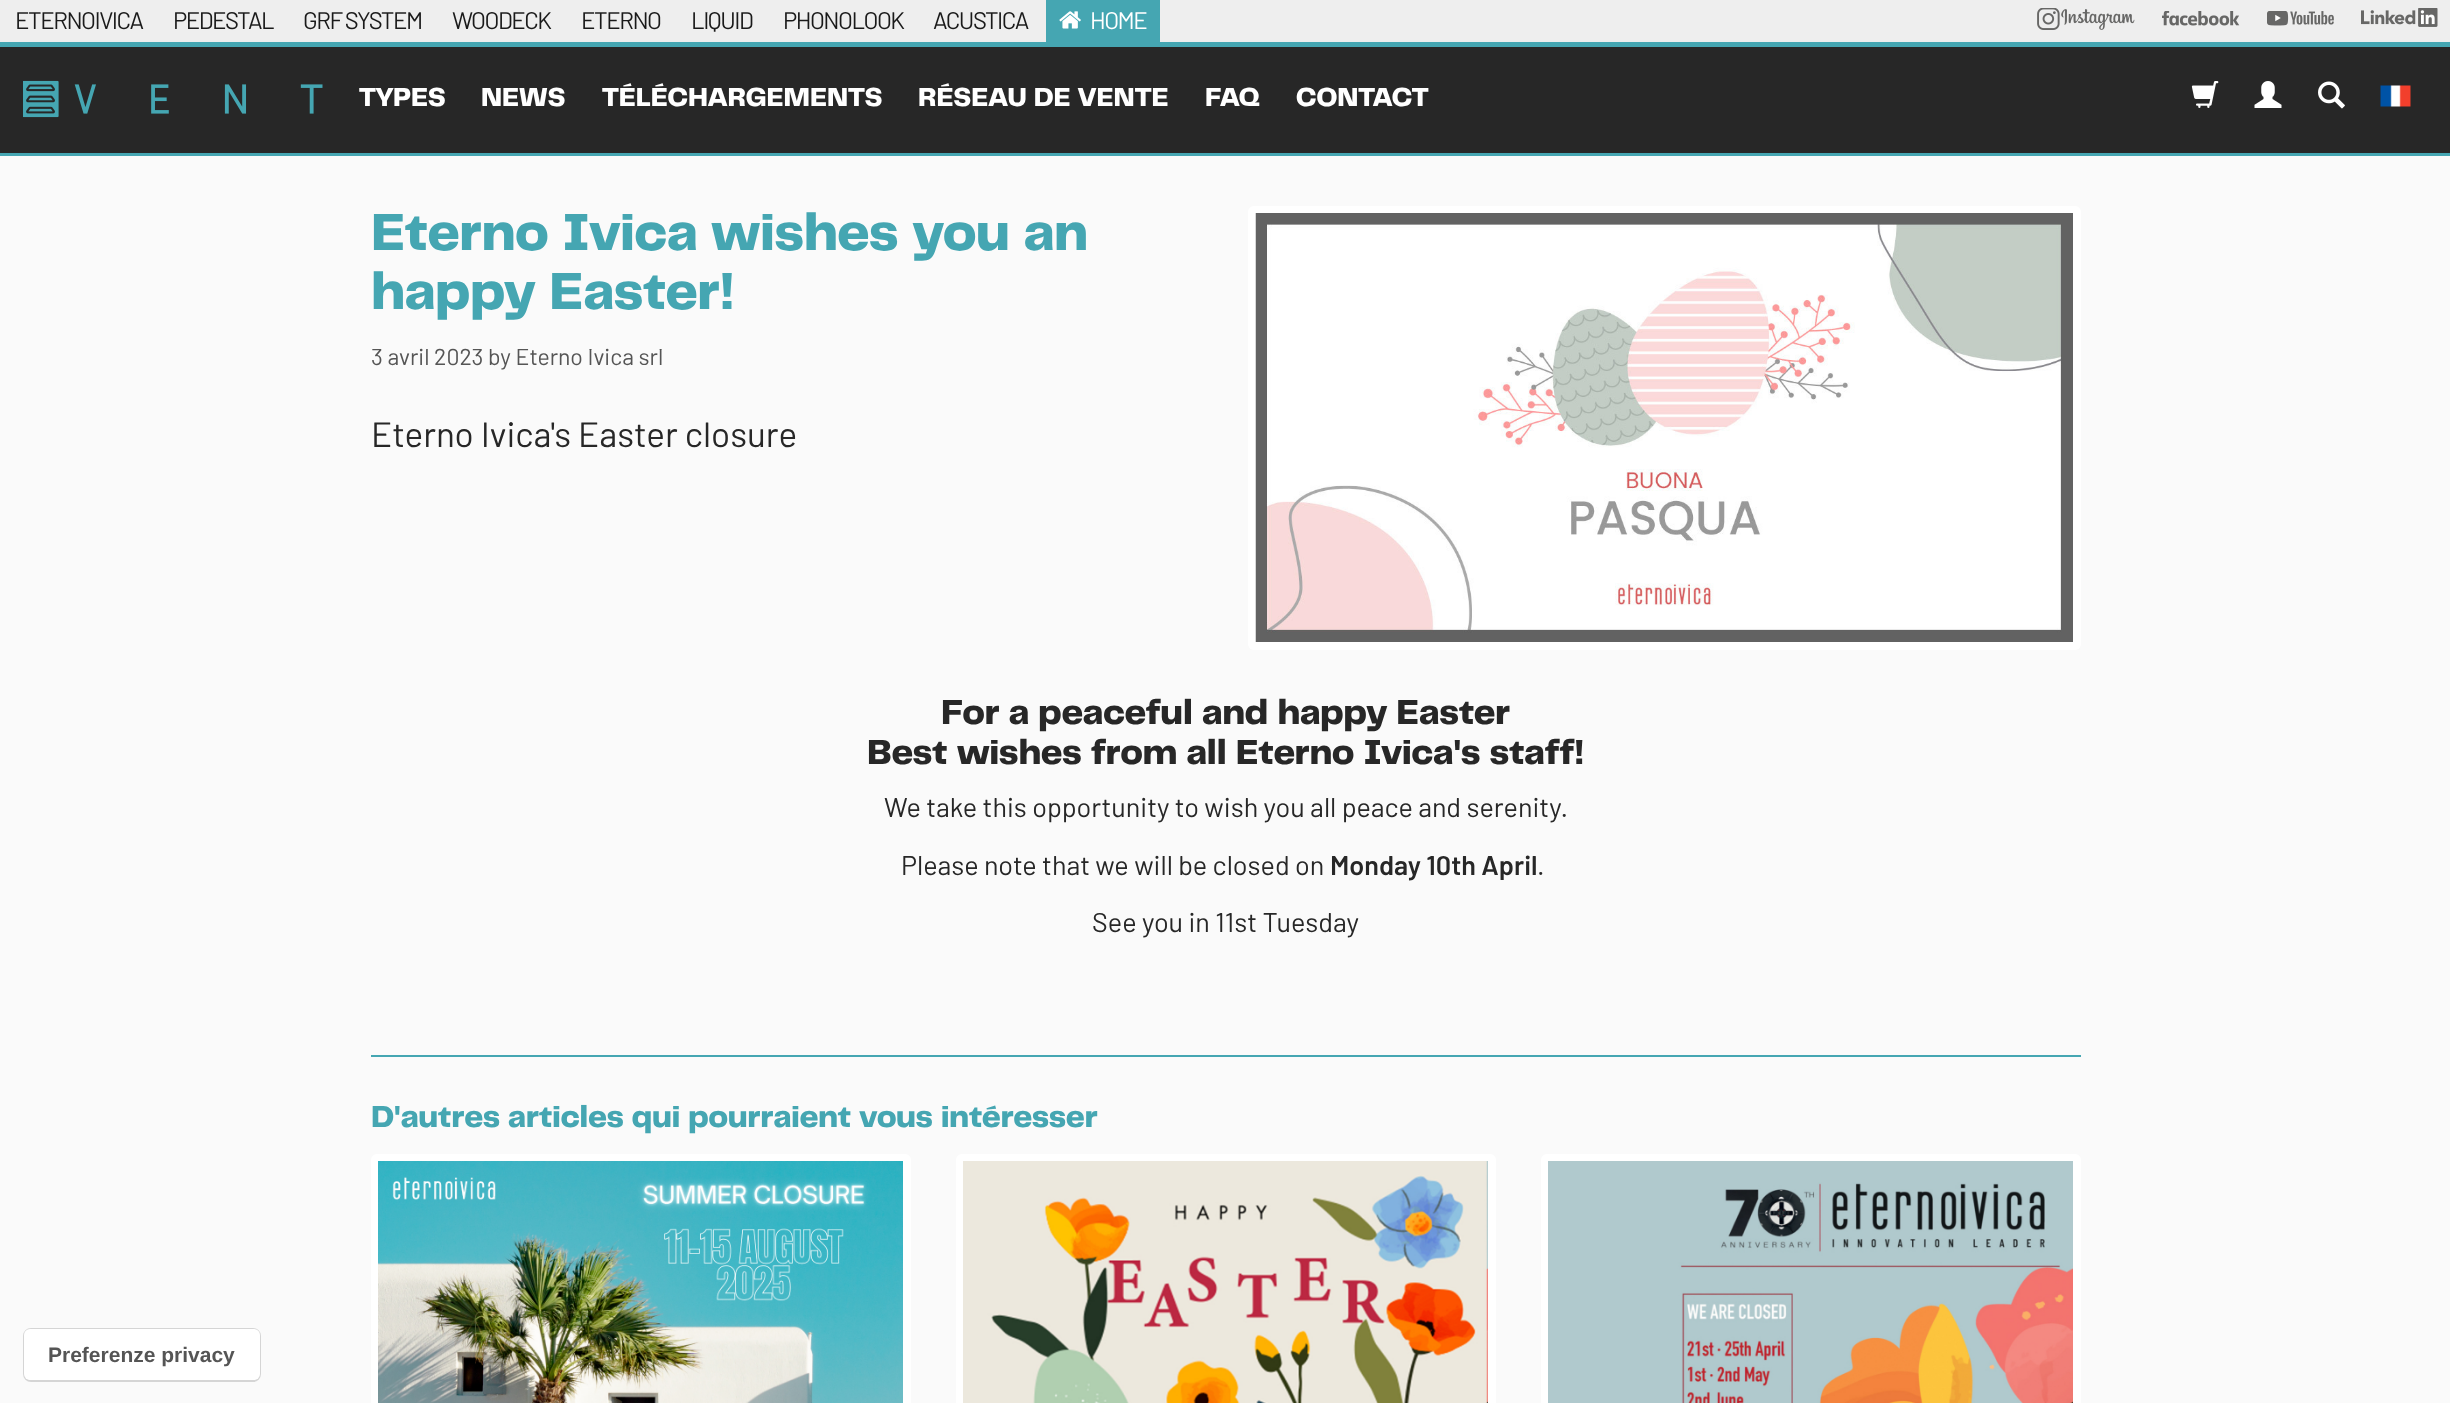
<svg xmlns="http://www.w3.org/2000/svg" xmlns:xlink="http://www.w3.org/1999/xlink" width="2450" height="1403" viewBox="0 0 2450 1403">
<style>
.cls-1{font:24px Barlow;letter-spacing:-1.5px;fill:#1a1a1a}
.cls-2{font:24px Barlow;letter-spacing:-1.5px;fill:#ffffff}
.cls-3{font:800 27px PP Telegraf;fill:#ffffff}
.cls-4{font:800 54px PP Telegraf;fill:#45a6b2}
.cls-5{font:23px Barlow;fill:#555555}
.cls-6{font:35.1px Barlow;fill:#272727}
.cls-7{font:800 36px PP Telegraf;fill:#272727}
.cls-8{font:27px Barlow;fill:#272727}
.cls-9{font:600 27px Barlow;fill:#272727}
.cls-10{font:800 31.5px PP Telegraf;fill:#45a6b2}
.cls-11{font:bold 21px Liberation Sans;fill:#555555}
</style>
<rect width="100%" height="100%" fill="#fafafa"/>
<rect fill="#272727" x="0" y="47" width="2450" height="106"/>
<rect fill="#eeeeee" x="0" y="0" width="2450" height="42"/>
<rect fill="#45a6b2" x="0" y="42" width="2450" height="5"/>
<rect fill="#45a6b2" x="1046" y="0" width="114" height="42"/>
<image xlink:href="image0.png" x="1059" y="11" width="22" height="18"/>
<image xlink:href="image1.png" x="2037" y="8" width="98" height="22"/>
<image xlink:href="image2.png" x="2162" y="11" width="78" height="15"/>
<image xlink:href="image3.png" x="2267" y="11" width="67" height="15"/>
<image xlink:href="image4.png" x="2361" y="8" width="77" height="19"/>
<image xlink:href="image5.png" x="23" y="80" width="300" height="38"/>
<image xlink:href="image6.png" x="2191" y="81" width="28" height="27"/>
<image xlink:href="image7.png" x="2254" y="81" width="28" height="27"/>
<image xlink:href="image8.png" x="2318" y="81" width="27" height="28"/>
<image xlink:href="image9.png" x="2380" y="85" width="31" height="22"/>
<rect fill="#45a6b2" x="0" y="153" width="2450" height="3"/>
<rect fill="#ffffff" x="1248" y="206" width="833" height="444" rx="6"/>
<image xlink:href="image10.png" x="1255" y="213" width="818" height="429"/>
<rect fill="#45a6b2" x="371" y="1055" width="1710" height="2"/>
<rect fill="#ffffff" x="371" y="1154" width="540" height="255" rx="6"/>
<image xlink:href="image11.png" x="378" y="1161" width="525" height="242"/>
<rect fill="#ffffff" x="956" y="1154" width="540" height="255" rx="6"/>
<image xlink:href="image12.png" x="963" y="1161" width="525" height="242"/>
<rect fill="#ffffff" x="1541" y="1154" width="540" height="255" rx="6"/>
<image xlink:href="image13.png" x="1548" y="1161" width="525" height="242"/>
<rect fill="none" stroke="#d5d5d5" stroke-width="2" x="24" y="1329" width="236" height="52" rx="7"/>
<rect fill="#ffffff" x="24" y="1329" width="236" height="51" rx="6"/>
<text class="cls-1" x="15" y="29">ETERNOIVICA</text>
<text class="cls-1" x="173" y="29">PEDESTAL</text>
<text class="cls-1" x="303" y="29">GRF SYSTEM</text>
<text class="cls-1" x="452" y="29">WOODECK</text>
<text class="cls-1" x="581" y="29">ETERNO</text>
<text class="cls-1" x="691" y="29">LIQUID</text>
<text class="cls-1" x="783" y="29">PHONOLOOK</text>
<text class="cls-1" x="933" y="29">ACUSTICA</text>
<text class="cls-2" x="1090" y="29">HOME</text>
<text class="cls-3" x="359" y="106">TYPES</text>
<text class="cls-3" x="481" y="106">NEWS</text>
<text class="cls-3" x="602" y="106">TÉLÉCHARGEMENTS</text>
<text class="cls-3" x="918" y="106">RÉSEAU DE VENTE</text>
<text class="cls-3" x="1205" y="106">FAQ</text>
<text class="cls-3" x="1296" y="106">CONTACT</text>
<text class="cls-4"><tspan x="371" y="250">Eterno Ivica wishes you an</tspan><tspan x="371" y="309">happy Easter!</tspan></text>
<text class="cls-5" x="371" y="365">3 avril 2023 by Eterno Ivica srl</text>
<text class="cls-6" x="371" y="447">Eterno Ivica's Easter closure</text>
<text class="cls-7" x="941" y="724">For a peaceful and happy Easter</text>
<text class="cls-7" x="867" y="764">Best wishes from all Eterno Ivica's staff!</text>
<text class="cls-8" x="884" y="817">We take this opportunity to wish you all peace and serenity.</text>
<text class="cls-8" x="901" y="875">Please note that we will be closed on</text>
<text class="cls-9" x="1330" y="875">Monday 10th April</text>
<text class="cls-8" x="1537" y="875">.</text>
<text class="cls-8" x="1092" y="932">See you in 11st Tuesday</text>
<text class="cls-10" x="371" y="1127">D'autres articles qui pourraient vous intéresser</text>
<text class="cls-11" x="48" y="1362">Preferenze privacy</text>
</svg>
